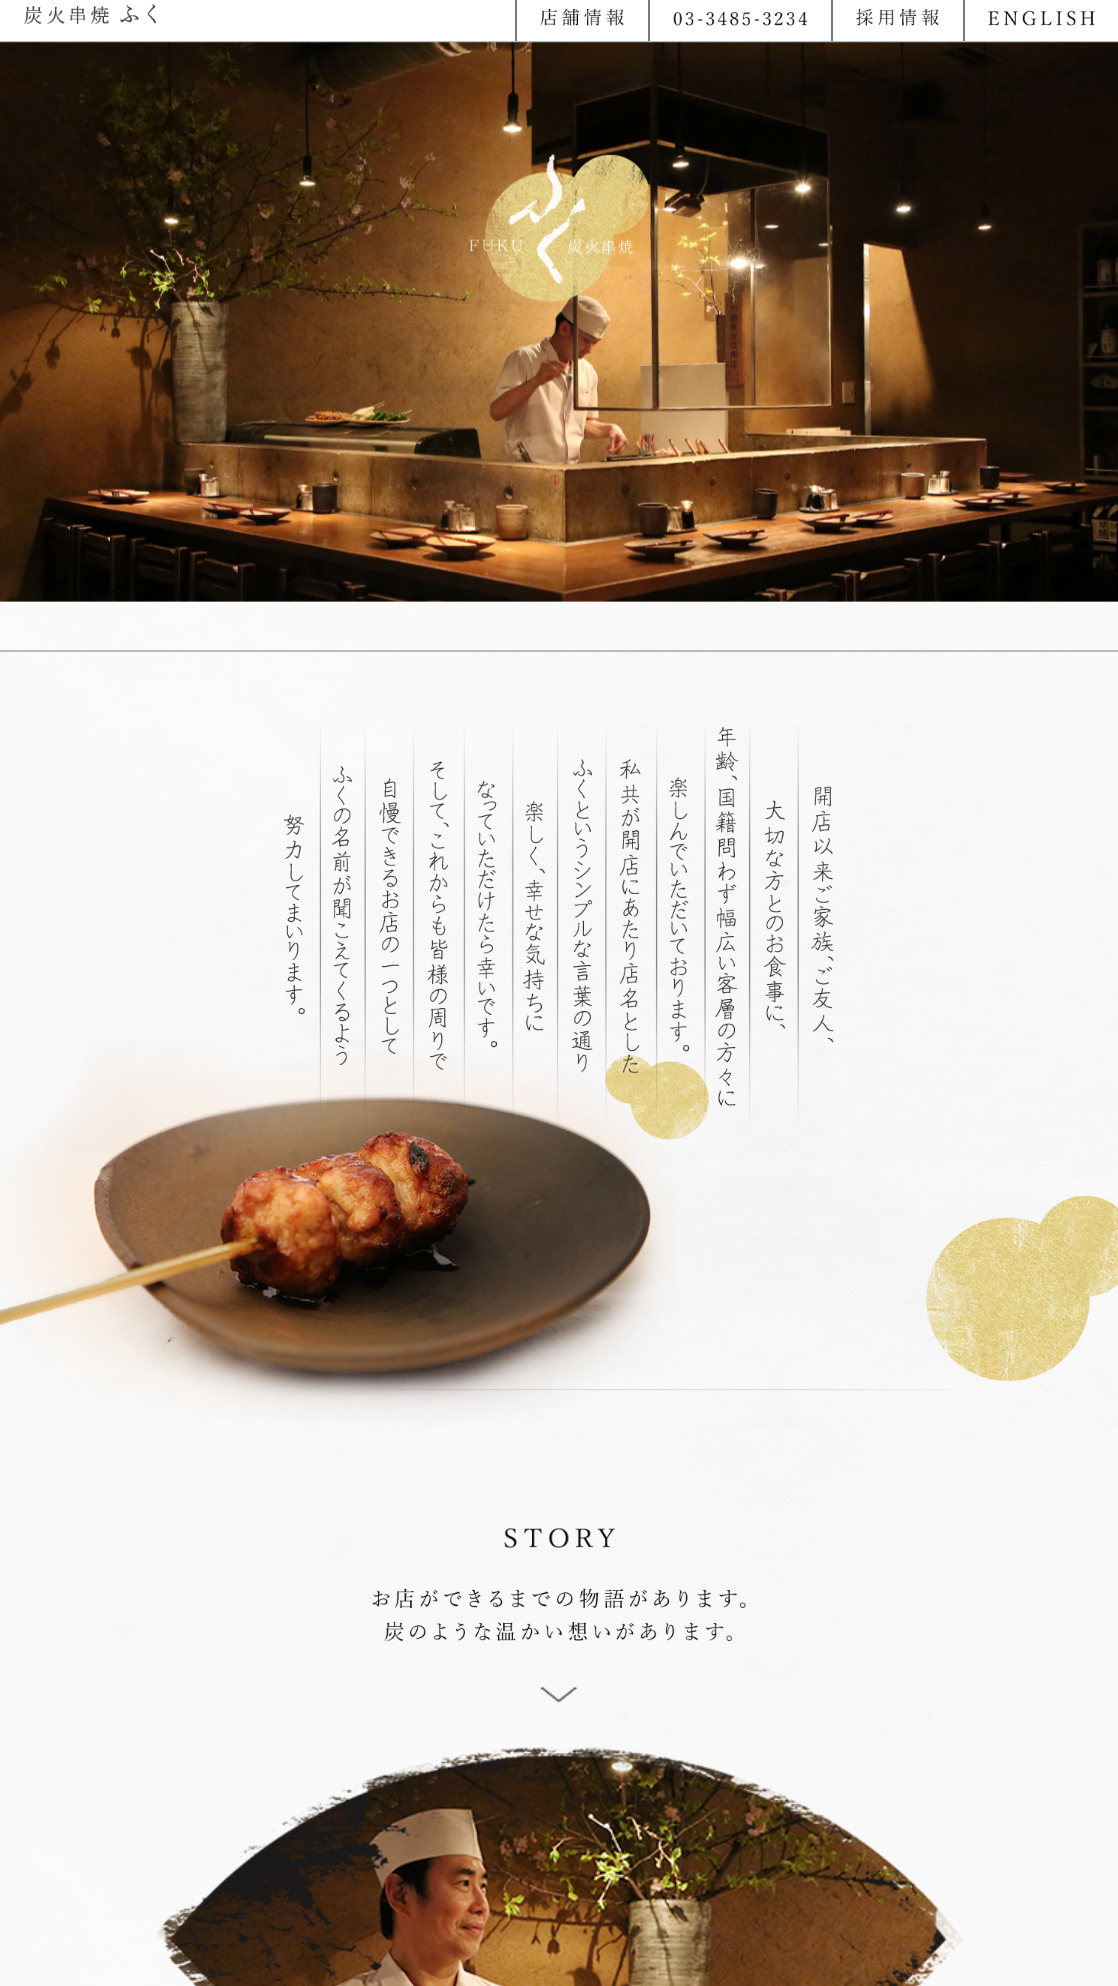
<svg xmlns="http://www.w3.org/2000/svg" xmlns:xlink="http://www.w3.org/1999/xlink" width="1118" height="1986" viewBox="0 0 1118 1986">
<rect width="100%" height="100%" fill="#ffffff"/>
<image xlink:href="image0.png" x="0" y="601" width="1118" height="1385"/>
<rect fill="#bbbbbb" x="0" y="41" width="1118" height="2"/>
<image xlink:href="image1.png" x="24" y="4" width="132" height="20"/>
<rect fill="#777777" x="515" y="0" width="2" height="41"/>
<image xlink:href="image2.png" x="540" y="9" width="84" height="17"/>
<rect fill="#777777" x="648" y="0" width="2" height="41"/>
<image xlink:href="image3.png" x="673" y="12" width="134" height="14"/>
<rect fill="#777777" x="831" y="0" width="2" height="41"/>
<image xlink:href="image4.png" x="856" y="9" width="83" height="17"/>
<rect fill="#777777" x="963" y="0" width="2" height="41"/>
<image xlink:href="image5.png" x="988" y="10" width="107" height="16"/>
<image xlink:href="image6.png" x="0" y="42" width="1118" height="560"/>
<image xlink:href="image7.png" x="469" y="154" width="181" height="148"/>
<rect fill="#bbbbbb" x="0" y="650" width="1118" height="2"/>
<image xlink:href="image8.png" x="0" y="1040" width="1118" height="382"/>
<image xlink:href="image9.png" x="283" y="725" width="551" height="397"/>
<image xlink:href="image10.png" x="504" y="1528" width="111" height="20"/>
<image xlink:href="image11.png" x="372" y="1588" width="374" height="53"/>
<image xlink:href="image12.png" x="540" y="1687" width="38" height="16"/>
<image xlink:href="image13.png" x="157" y="1747" width="806" height="239"/>
</svg>
